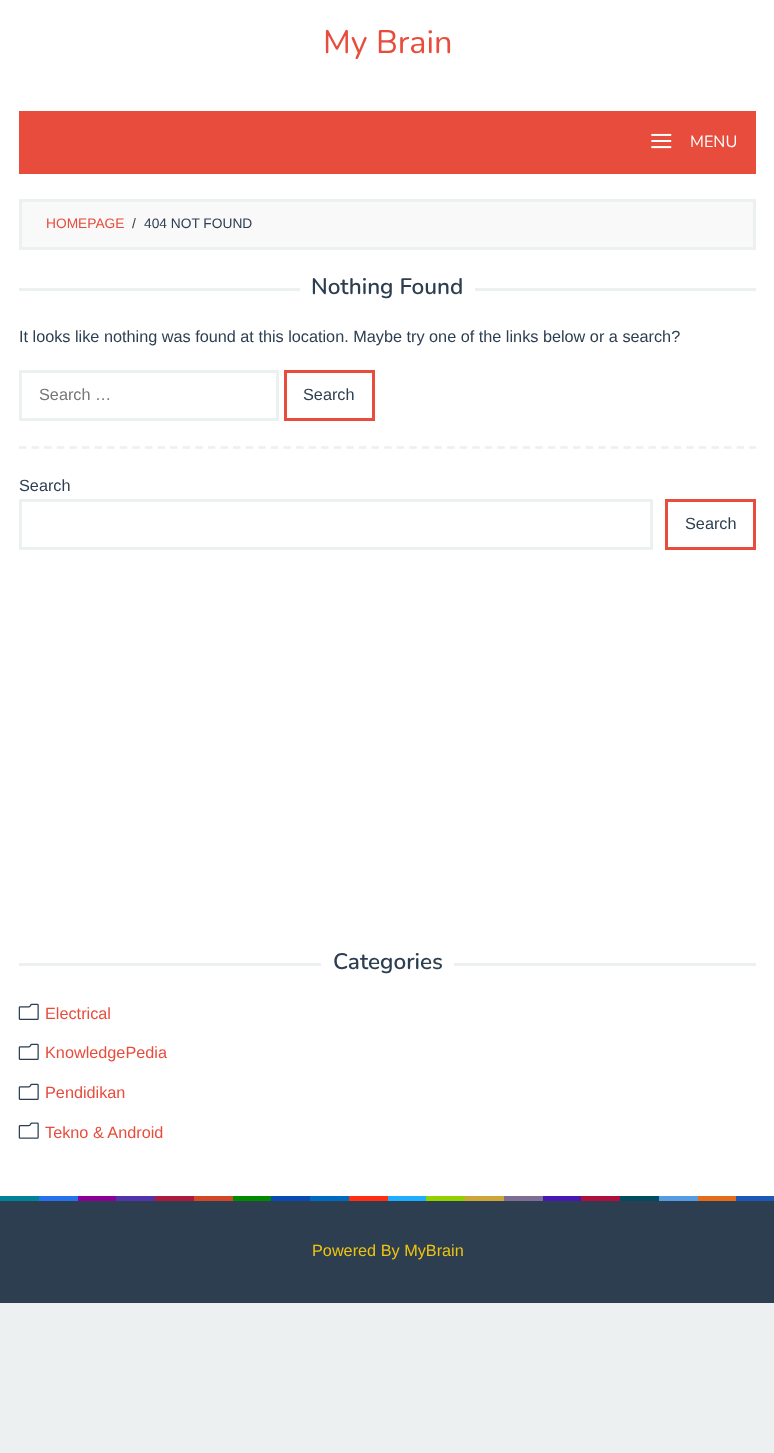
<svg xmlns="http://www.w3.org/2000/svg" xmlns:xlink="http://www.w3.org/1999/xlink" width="774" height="1453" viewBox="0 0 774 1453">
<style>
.cls-1{font:32.5px Nunito;fill:#e74c3c}
.cls-2{font:16.25px Nunito;fill:#ffffff}
.cls-3{font:13.75px Liberation Sans;fill:#e74c3c}
.cls-4{font:13.75px Liberation Sans;fill:#2c3e50}
.cls-5{font:600 22.5px Nunito;fill:#2c3e50}
.cls-6{font:16.25px Liberation Sans;fill:#2c3e50}
.cls-7{font:16.25px Liberation Sans;fill:#757575}
.cls-8{font:16.25px Liberation Sans;fill:#e74c3c}
.cls-9{font:16.25px Liberation Sans;fill:#f1c40f}
</style>
<rect width="100%" height="100%" fill="#ecf0f1"/>
<rect fill="#ffffff" x="0" y="0" width="774" height="1196"/>
<rect fill="#e74c3c" x="19" y="111" width="737" height="63"/>
<image xlink:href="image0.png" x="651" y="133" width="21" height="16"/>
<rect fill="#f9f9f9" stroke="#ecf0f1" stroke-width="3" x="20.5" y="200.5" width="734" height="48"/>
<path fill="none" stroke="#ecf0f1" stroke-width="2.5" stroke-dasharray="7.5 5.09" d="M19 447.5H756"/>
<rect fill="#ecf0f1" x="19" y="288" width="281" height="3"/>
<rect fill="#ecf0f1" x="475" y="288" width="281" height="3"/>
<rect fill="none" stroke="#ecf0f1" stroke-width="3" x="20.5" y="371.5" width="257" height="48"/>
<rect fill="none" stroke="#e74c3c" stroke-width="3" x="285.5" y="371.5" width="88" height="48"/>
<rect fill="none" stroke="#ecf0f1" stroke-width="3" x="20.5" y="500.5" width="631" height="48"/>
<rect fill="none" stroke="#e74c3c" stroke-width="3" x="666.5" y="500.5" width="88" height="48"/>
<rect fill="#ecf0f1" x="19" y="963" width="302" height="3"/>
<rect fill="#ecf0f1" x="454" y="963" width="302" height="3"/>
<image xlink:href="image1.png" x="18" y="1003" width="21" height="17"/>
<image xlink:href="image1.png" x="18" y="1043" width="21" height="17"/>
<image xlink:href="image1.png" x="18" y="1083" width="21" height="17"/>
<image xlink:href="image2.png" x="18" y="1122" width="21" height="17"/>
<rect fill="#008299" x="0" y="1196" width="39" height="5"/>
<rect fill="#2672ec" x="39" y="1196" width="39" height="5"/>
<rect fill="#8c0095" x="78" y="1196" width="38" height="5"/>
<rect fill="#5133ab" x="116" y="1196" width="39" height="5"/>
<rect fill="#ac193d" x="155" y="1196" width="39" height="5"/>
<rect fill="#d24726" x="194" y="1196" width="39" height="5"/>
<rect fill="#008a00" x="233" y="1196" width="38" height="5"/>
<rect fill="#094ab2" x="271" y="1196" width="39" height="5"/>
<rect fill="#006ac1" x="310" y="1196" width="39" height="5"/>
<rect fill="#ff2e12" x="349" y="1196" width="39" height="5"/>
<rect fill="#1faeff" x="388" y="1196" width="38" height="5"/>
<rect fill="#91d100" x="426" y="1196" width="39" height="5"/>
<rect fill="#cea539" x="465" y="1196" width="39" height="5"/>
<rect fill="#7f6e94" x="504" y="1196" width="39" height="5"/>
<rect fill="#4617b4" x="543" y="1196" width="38" height="5"/>
<rect fill="#ad103c" x="581" y="1196" width="39" height="5"/>
<rect fill="#004d60" x="620" y="1196" width="39" height="5"/>
<rect fill="#569ce3" x="659" y="1196" width="39" height="5"/>
<rect fill="#e56c19" x="698" y="1196" width="38" height="5"/>
<rect fill="#1b58b8" x="736" y="1196" width="38" height="5"/>
<rect fill="#2c3e50" x="0" y="1201" width="774" height="102"/>
<text class="cls-1" x="323" y="53">My Brain</text>
<text class="cls-2" x="690" y="147">MENU</text>
<text class="cls-3" x="46" y="228">HOMEPAGE</text>
<text class="cls-4" x="132" y="228">/</text>
<text class="cls-4" x="144" y="228">404 NOT FOUND</text>
<text class="cls-5" x="311" y="294">Nothing Found</text>
<text class="cls-6" x="19" y="342">It looks like nothing was found at this location. Maybe try one of the links below or a search?</text>
<text class="cls-7" x="39" y="400">Search …</text>
<text class="cls-6" x="303" y="400">Search</text>
<text class="cls-6" x="19" y="491">Search</text>
<text class="cls-6" x="685" y="529">Search</text>
<text class="cls-5" x="333" y="969">Categories</text>
<text class="cls-8" x="45" y="1019">Electrical</text>
<text class="cls-8" x="45" y="1058">KnowledgePedia</text>
<text class="cls-8" x="45" y="1098">Pendidikan</text>
<text class="cls-8" x="45" y="1138">Tekno &amp; Android</text>
<text class="cls-9" x="312" y="1256">Powered By MyBrain</text>
</svg>
